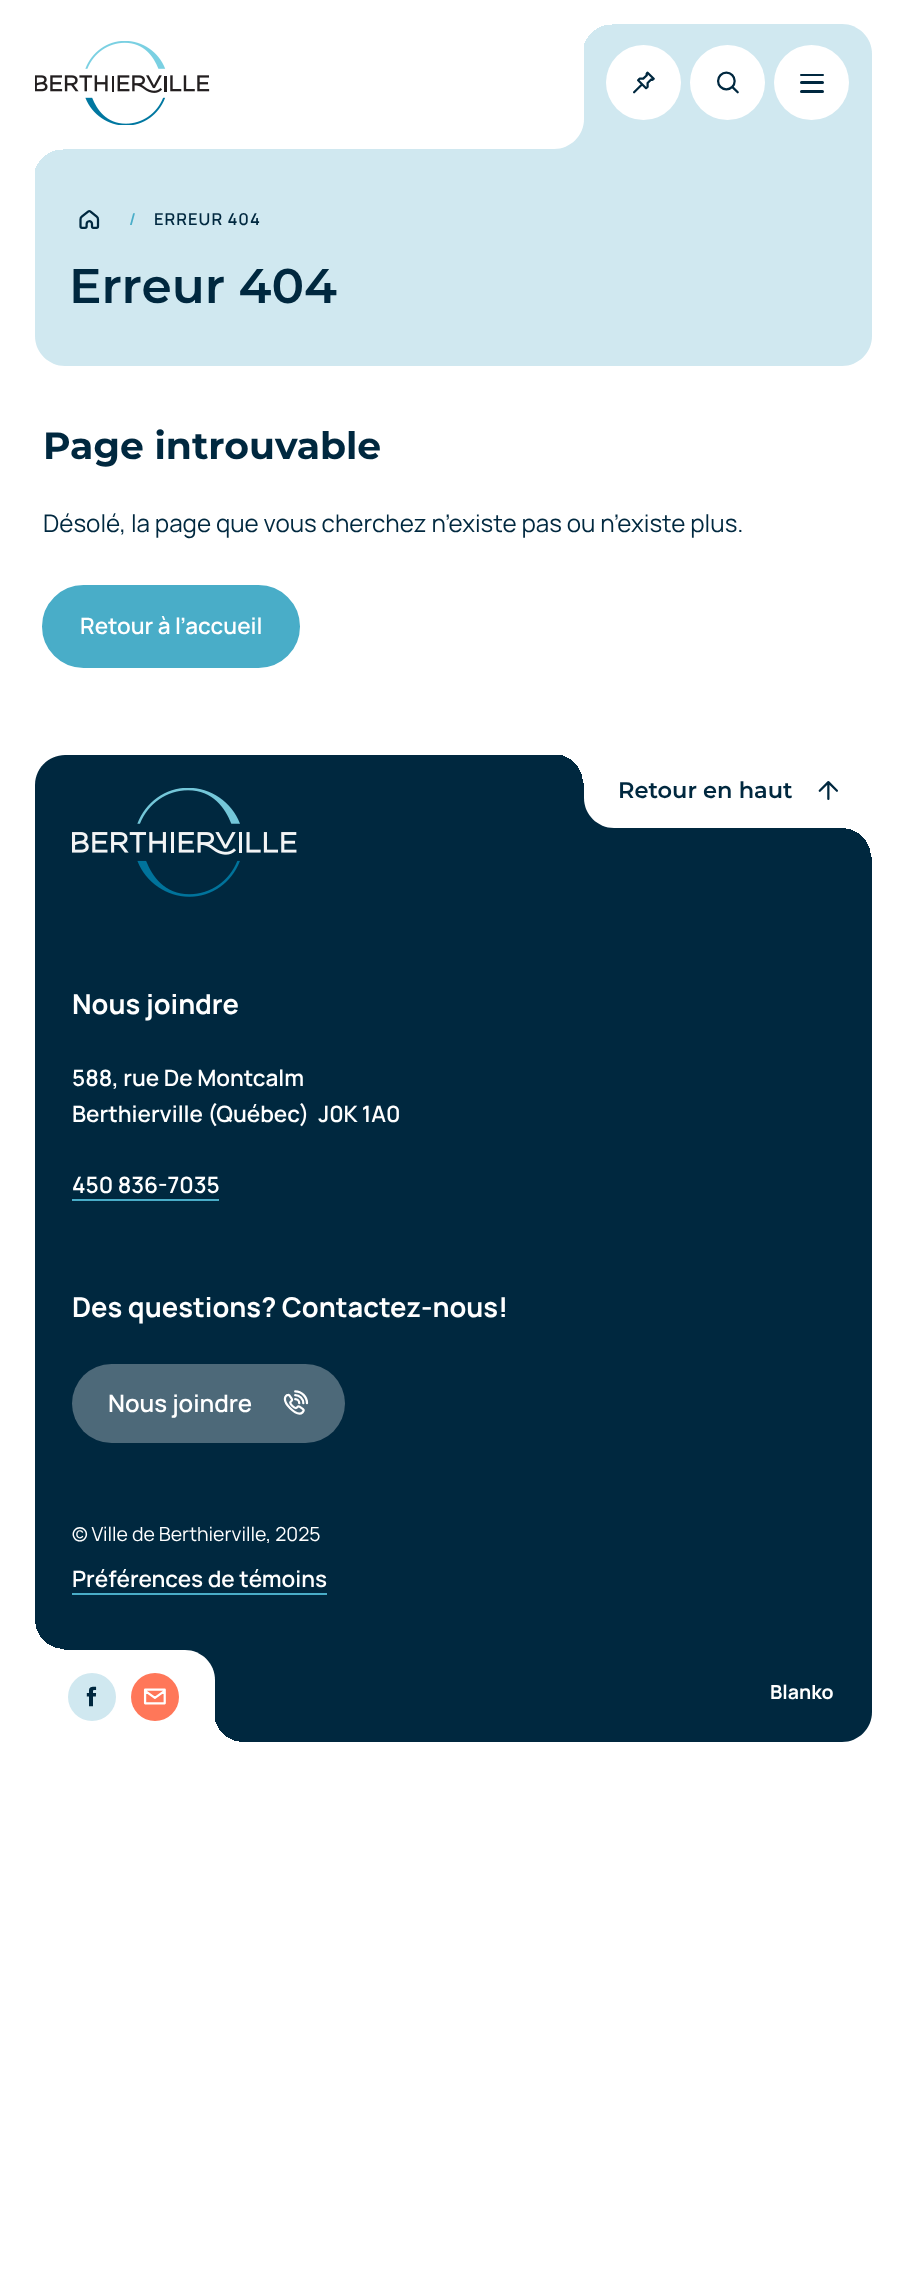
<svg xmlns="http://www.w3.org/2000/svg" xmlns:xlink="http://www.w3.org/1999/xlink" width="906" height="2284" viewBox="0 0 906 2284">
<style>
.cls-1{font:600 16.5px Manrope;letter-spacing:1px;fill:#49adc8}
.cls-2{font:600 16.5px Manrope;letter-spacing:1px;fill:#00283f}
.cls-3{font:600 48.5px Montserrat;fill:#00283f}
.cls-4{font:bold 37.75px Montserrat;fill:#00283f}
.cls-5{font:24.2px Manrope;fill:#00283f}
.cls-6{font:600 22.5px Manrope;fill:#ffffff}
.cls-7{font:600 22.5px Montserrat;fill:#00283f}
.cls-8{font:bold 27.3px Manrope;fill:#ffffff}
.cls-9{font:600 24px Manrope;fill:#ffffff}
.cls-10{font:19.5px Manrope;fill:#ffffff}
.cls-11{font:bold 19.5px Manrope;fill:#ffffff}
</style>
<defs>
<radialGradient id="g1" gradientUnits="userSpaceOnUse" cx="612" cy="54" r="44"><stop offset="0.67" stop-color="#ffffff" stop-opacity="0"/><stop offset="0.67" stop-color="#ffffff"/></radialGradient>
<radialGradient id="g2" gradientUnits="userSpaceOnUse" cx="63" cy="179" r="44"><stop offset="0.67" stop-color="#ffffff" stop-opacity="0"/><stop offset="0.67" stop-color="#ffffff"/></radialGradient>
<radialGradient id="g3" gradientUnits="userSpaceOnUse" cx="554" cy="783" r="43"><stop offset="0.67" stop-color="#ffffff" stop-opacity="0"/><stop offset="0.67" stop-color="#ffffff"/></radialGradient>
<radialGradient id="g4" gradientUnits="userSpaceOnUse" cx="842" cy="857" r="43"><stop offset="0.67" stop-color="#ffffff" stop-opacity="0"/><stop offset="0.67" stop-color="#ffffff"/></radialGradient>
<radialGradient id="g5" gradientUnits="userSpaceOnUse" cx="64" cy="1620" r="43"><stop offset="0.67" stop-color="#ffffff" stop-opacity="0"/><stop offset="0.67" stop-color="#ffffff"/></radialGradient>
<radialGradient id="g6" gradientUnits="userSpaceOnUse" cx="243" cy="1713" r="43"><stop offset="0.67" stop-color="#ffffff" stop-opacity="0"/><stop offset="0.67" stop-color="#ffffff"/></radialGradient>
</defs>
<rect width="100%" height="100%" fill="#ffffff"/>
<path fill="#d0e8f0" d="M35 24H842C858.5 24 872 37.5 872 54V336C872 352.5 858.5 366 842 366H65C48.5 366 35 352.5 35 336Z"/>
<path fill="#ffffff" d="M33 24H584V119C584 135.5 570.5 149 554 149H33Z"/>
<image xlink:href="image0.png" x="35" y="41" width="175" height="84"/>
<circle fill="#ffffff" cx="643.5" cy="82.5" r="37.5"/>
<image xlink:href="image1.png" x="633" y="71" width="22" height="23"/>
<circle fill="#ffffff" cx="727.5" cy="82.5" r="37.5"/>
<image xlink:href="image2.png" x="717" y="71" width="22" height="23"/>
<circle fill="#ffffff" cx="811.5" cy="82.5" r="37.5"/>
<rect fill="#00283f" x="800" y="74" width="24" height="2" rx="1"/>
<rect fill="#00283f" x="800" y="81" width="24" height="3" rx="1.5"/>
<rect fill="#00283f" x="800" y="90" width="24" height="3" rx="1.5"/>
<rect fill="url(#g1)" x="584" y="24" width="28" height="19"/>
<rect fill="url(#g2)" x="35" y="149" width="28" height="19"/>
<image xlink:href="image3.png" x="79" y="210" width="21" height="19"/>
<rect fill="#49adc8" stroke="#49adc8" stroke-width="2" x="43" y="586" width="256" height="81" rx="40.5"/>
<path fill="#00283f" d="M65 755H872V1712C872 1728.5 858.5 1742 842 1742H35V785C35 768.5 48.5 755 65 755Z"/>
<path fill="#ffffff" d="M584 753H873V828H614C597.5 828 584 814.5 584 798Z"/>
<rect fill="url(#g3)" x="563" y="755" width="21" height="28"/>
<image xlink:href="image4.png" x="818" y="781" width="20" height="19"/>
<rect fill="url(#g4)" x="846" y="828" width="26" height="29"/>
<image xlink:href="image5.png" x="72" y="788" width="225" height="109"/>
<rect fill="#49adc8" x="72" y="1199" width="147" height="2"/>
<rect fill="#4d6979" x="72" y="1364" width="273" height="79" rx="39.5"/>
<image xlink:href="image6.png" x="283" y="1390" width="26" height="25"/>
<rect fill="#49adc8" x="72" y="1593" width="255" height="2"/>
<path fill="#ffffff" d="M33 1650H185C201.5 1650 215 1663.5 215 1680V1743H33Z"/>
<rect fill="url(#g5)" x="35" y="1624" width="29" height="26"/>
<circle fill="#d0e8f0" cx="92" cy="1697" r="24"/>
<image xlink:href="image7.png" x="86" y="1686" width="11" height="21"/>
<circle fill="#ff7759" cx="155" cy="1697" r="24"/>
<image xlink:href="image8.png" x="143" y="1688" width="23" height="17"/>
<rect fill="url(#g6)" x="215" y="1722" width="24" height="20"/>
<text class="cls-1" x="129" y="225">/</text>
<text class="cls-2" x="154" y="225">ERREUR 404</text>
<text class="cls-3" x="69" y="303">Erreur 404</text>
<text class="cls-4" x="43" y="459">Page introuvable</text>
<text class="cls-5" x="43" y="532">Désolé, la page que vous cherchez n’existe pas ou n’existe plus.</text>
<text class="cls-6" x="80" y="634">Retour à l’accueil</text>
<text class="cls-7" x="618" y="798">Retour en haut</text>
<text class="cls-8" x="72" y="1014">Nous joindre</text>
<text class="cls-6" xml:space="preserve"><tspan x="72" y="1086">588, rue De Montcalm</tspan><tspan x="72" y="1122">Berthierville (Québec)  J0K 1A0</tspan></text>
<text class="cls-6" x="72" y="1193">450 836-7035</text>
<text class="cls-8" x="72" y="1317">Des questions? Contactez-nous!</text>
<text class="cls-9" x="108" y="1412">Nous joindre</text>
<text class="cls-10" x="72" y="1541">© Ville de Berthierville, 2025</text>
<text class="cls-6" x="72" y="1587">Préférences de témoins</text>
<text class="cls-11" x="770" y="1699">Blanko</text>
</svg>
